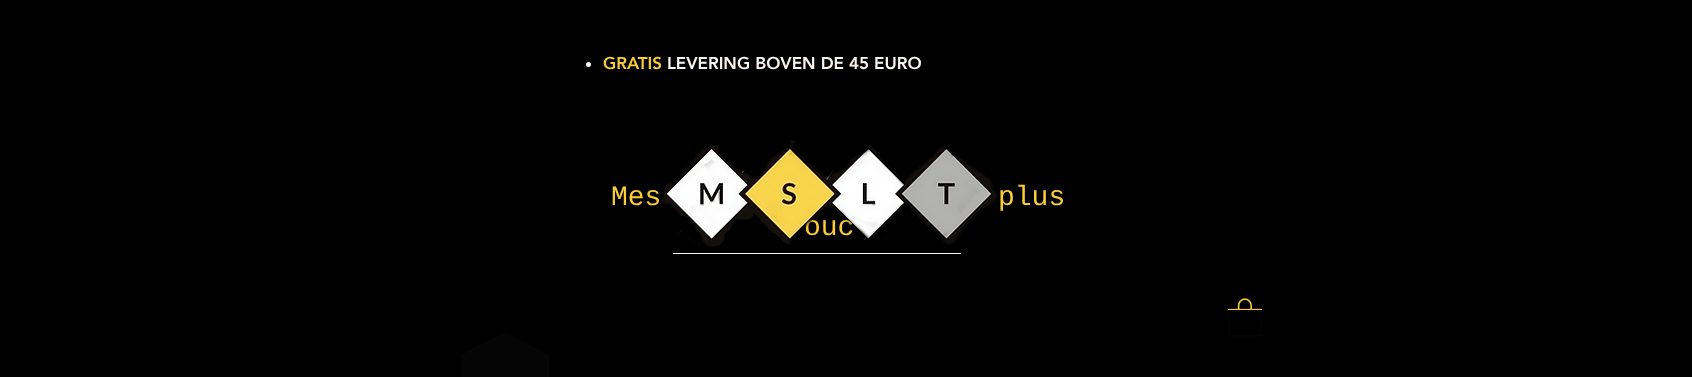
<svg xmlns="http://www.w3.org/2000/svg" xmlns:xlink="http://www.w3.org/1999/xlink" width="1692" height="377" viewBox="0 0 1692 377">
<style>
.cls-1{font:900 17px 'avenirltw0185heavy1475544';fill:#facc37}
.cls-2{font:900 17px 'avenirltw0185heavy1475544';fill:#fdf6f0}
.cls-3{font:28px Liberation Mono;fill:#facc37}
</style>
<rect width="100%" height="100%" fill="#000000"/>
<circle fill="#fdf6f0" cx="588.5" cy="64.5" r="2.5"/>
<rect fill="#fdf6f0" x="673" y="253" width="288" height="1"/>
<image xlink:href="image1.png" x="1228" y="298" width="34" height="39"/>
<path fill="#f5f5f5" d="M549 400L505 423L461 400V355L505 332L549 355Z"/>
<rect fill="#000000" fill-opacity="0.98" x="461" y="310" width="801" height="67"/>
<text class="cls-1" x="603" y="69">GRATIS</text>
<text class="cls-2" x="667" y="69">LEVERING BOVEN DE 45 EURO</text>
<text class="cls-3" x="611" y="205">Mes</text>
<text class="cls-3" x="998" y="205">plus</text>
<text class="cls-3" x="804" y="235">ouc</text>
<image xlink:href="image0.png" x="649" y="140" width="353" height="107"/>
</svg>
